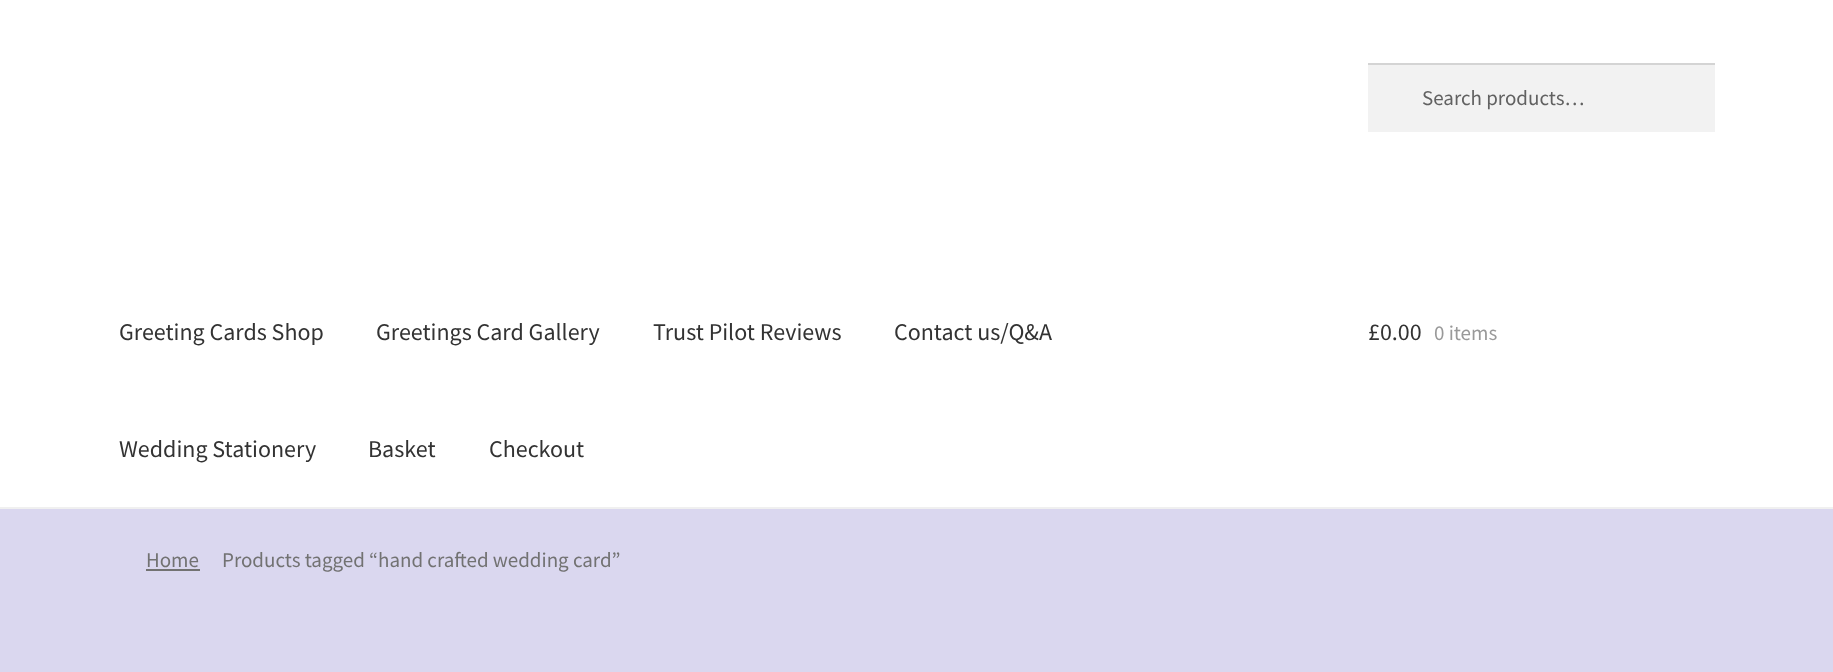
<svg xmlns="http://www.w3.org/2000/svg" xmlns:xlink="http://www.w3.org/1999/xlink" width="1833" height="672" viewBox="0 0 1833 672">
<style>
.cls-1{font:21px Source Sans Pro;fill:#616161}
.cls-2{font:24px Source Sans Pro;fill:#333333}
.cls-3{font:21px Source Sans Pro;fill:#999999}
.cls-4{font:21px Source Sans Pro;fill:#727272}
</style>
<rect width="100%" height="100%" fill="#dad7ef"/>
<rect fill="#ffffff" x="0" y="0" width="1833" height="507"/>
<rect fill="#f0f0f0" x="0" y="507" width="1833" height="2"/>
<rect fill="#f2f2f2" x="1368" y="65" width="347" height="67"/>
<rect fill="#d4d4d4" x="1368" y="63" width="347" height="2"/>
<rect fill="#727272" x="146" y="569" width="54" height="2"/>
<text class="cls-1" x="1422" y="105">Search products…</text>
<text class="cls-2" x="119" y="340">Greeting Cards Shop</text>
<text class="cls-2" x="376" y="340">Greetings Card Gallery</text>
<text class="cls-2" x="653" y="340">Trust Pilot Reviews</text>
<text class="cls-2" x="894" y="340">Contact us/Q&amp;A</text>
<text class="cls-2" x="119" y="457">Wedding Stationery</text>
<text class="cls-2" x="368" y="457">Basket</text>
<text class="cls-2" x="489" y="457">Checkout</text>
<text class="cls-2" x="1368" y="340">£0.00</text>
<text class="cls-3" x="1434" y="340">0 items</text>
<text class="cls-4" x="146" y="567">Home</text>
<text class="cls-4" x="222" y="567">Products tagged “hand crafted wedding card”</text>
</svg>
